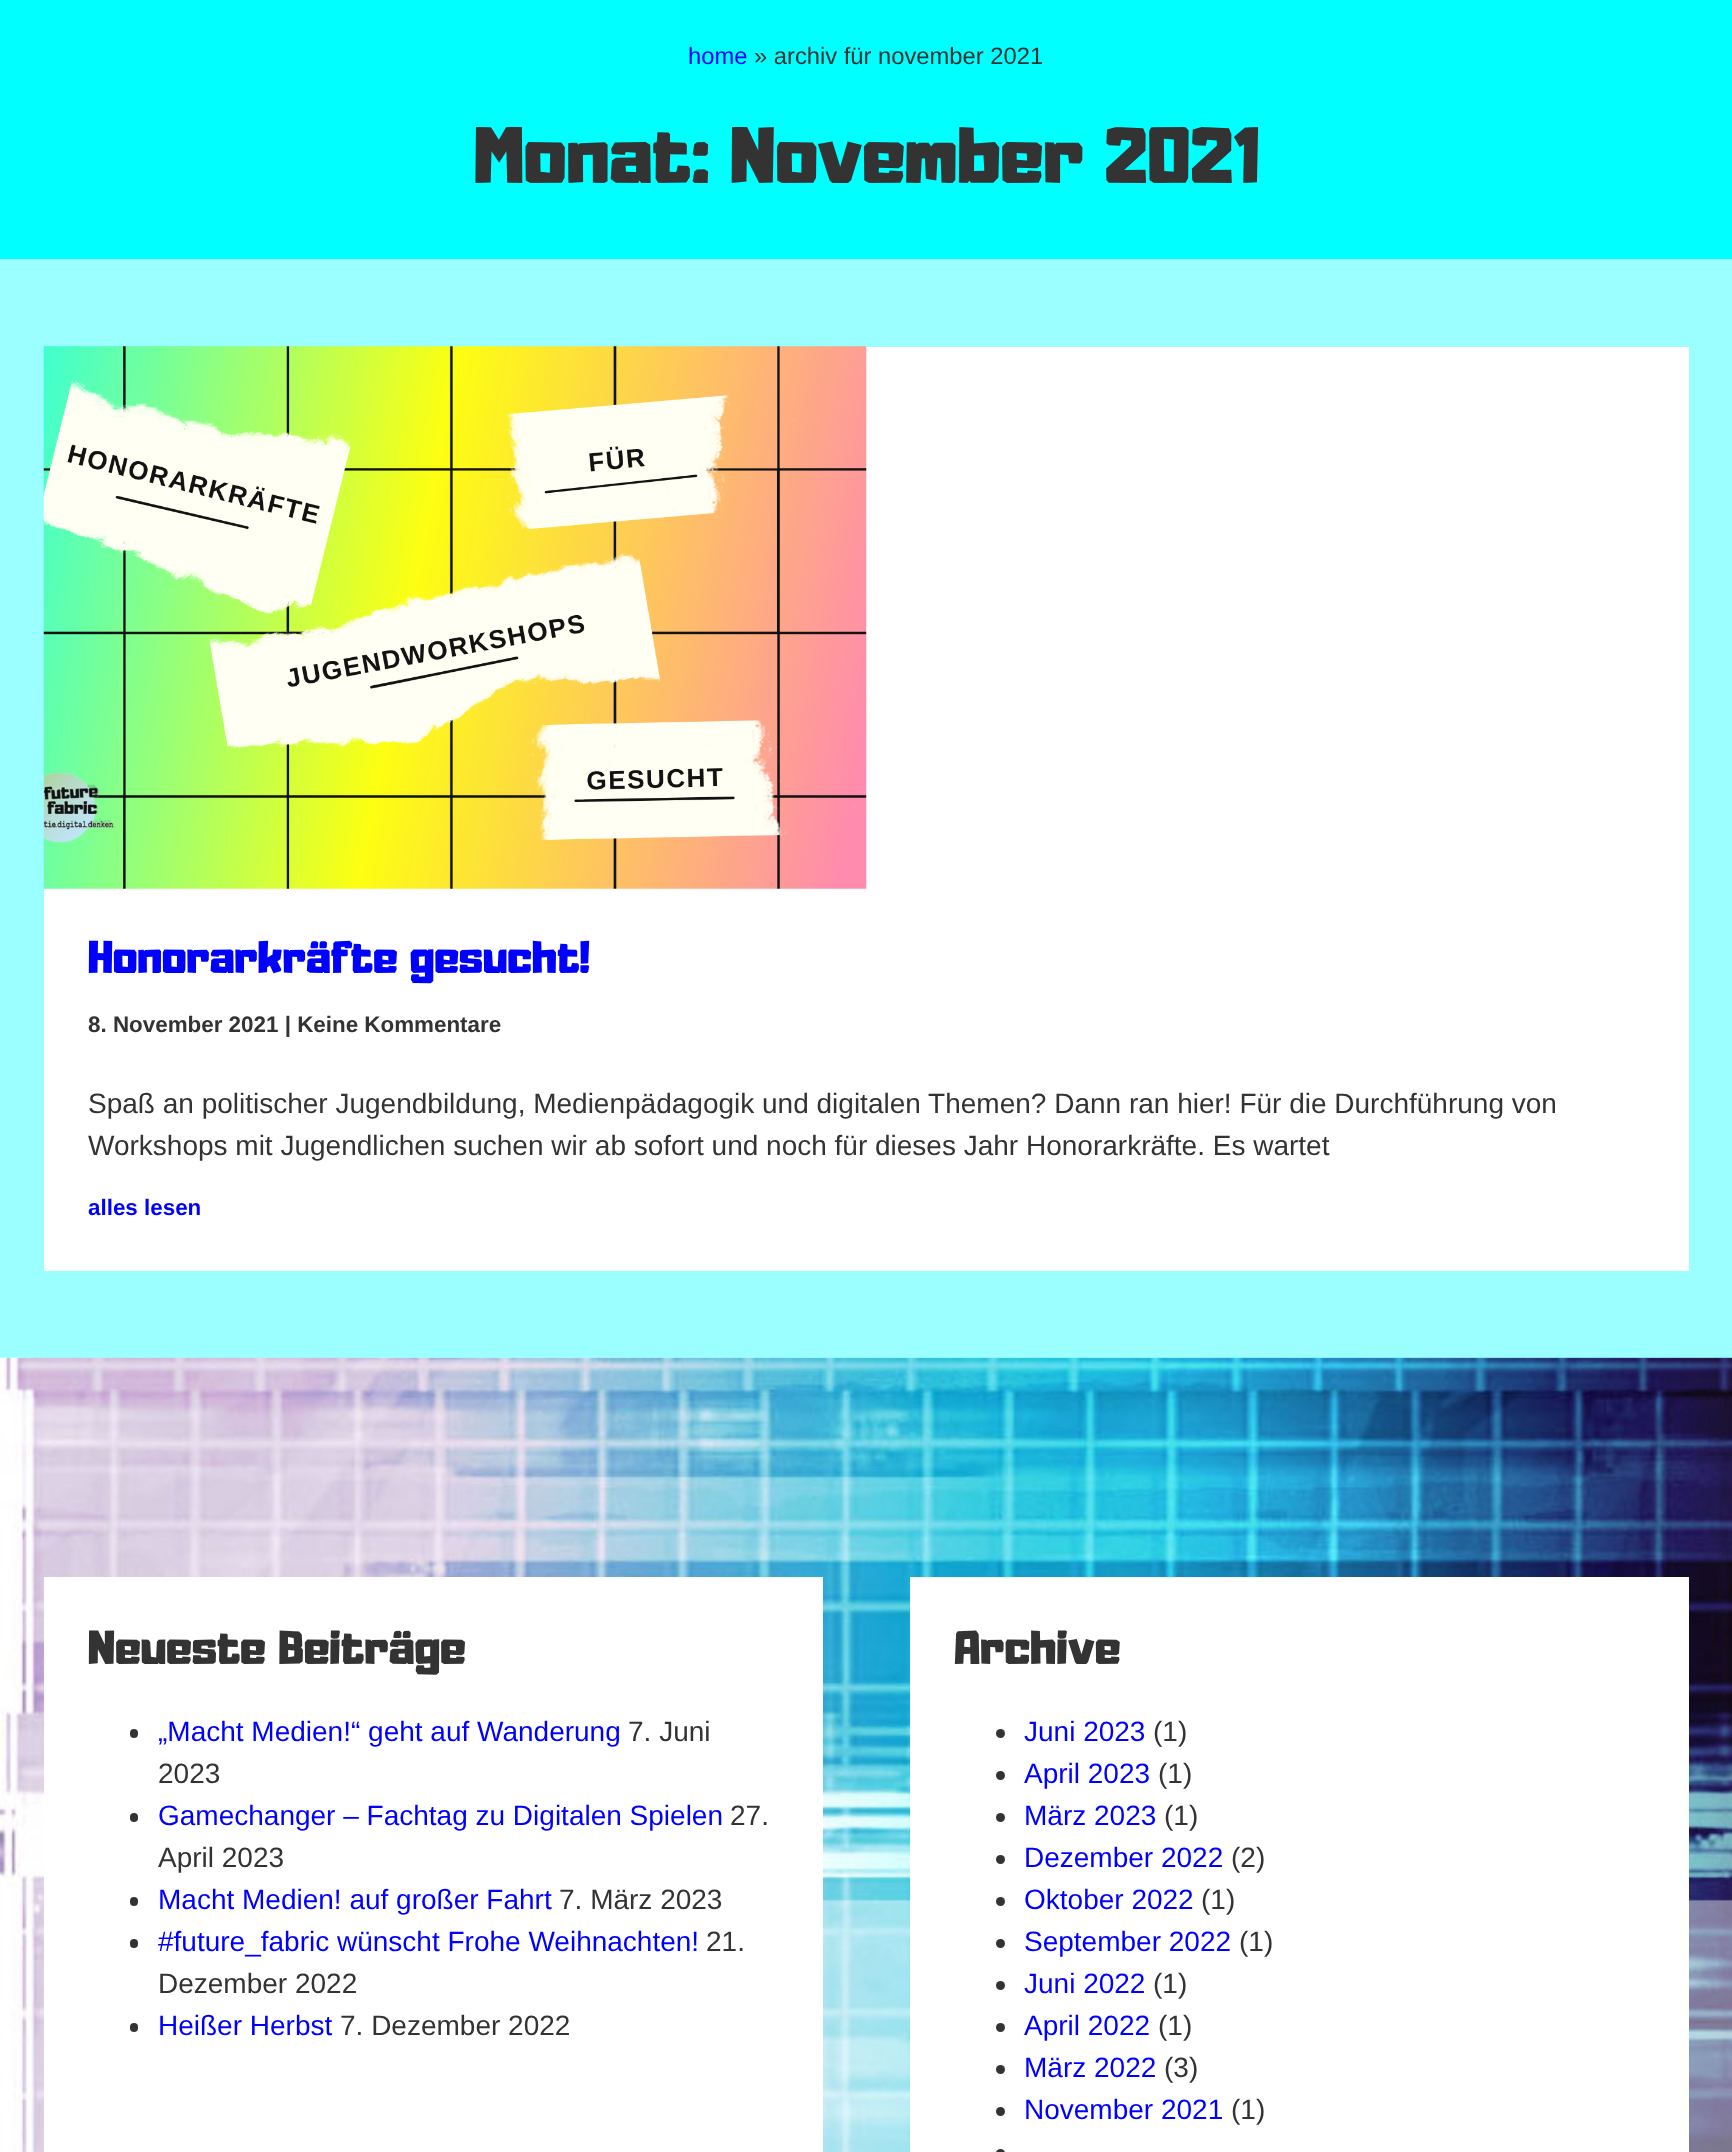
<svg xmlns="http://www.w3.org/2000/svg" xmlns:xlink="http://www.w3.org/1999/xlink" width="1732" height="2152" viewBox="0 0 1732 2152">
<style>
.cls-1{font:23.75px Liberation Sans;fill:#0000ff}
.cls-2{font:23.75px Liberation Sans;fill:#333333}
.cls-3{font:70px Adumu;fill:#333333}
.cls-4{font:40.25px Adumu;fill:#0000ff}
.cls-5{font:bold 22.4px Liberation Sans;fill:#333333}
.cls-6{font:28px Liberation Sans;fill:#333333}
.cls-7{font:bold 22.4px Liberation Sans;fill:#0000ff}
.cls-8{font:42px Adumu;fill:#333333}
.cls-9{font:28px Liberation Sans;fill:#0000ff}
</style>
<rect width="100%" height="100%" fill="#00ffff"/>
<rect fill="#9bffff" x="0" y="259" width="1732" height="1099"/>
<rect fill="#ffffff" x="44" y="347" width="1645" height="924"/>
<image xlink:href="image0.png" x="43" y="346" width="824" height="543"/>
<image xlink:href="image1.png" x="0" y="1357" width="1732" height="795"/>
<rect fill="#ffffff" x="44" y="1577" width="779" height="575"/>
<rect fill="#333333" x="130" y="1729" width="8" height="9" rx="4"/>
<rect fill="#333333" x="130" y="1813" width="8" height="9" rx="4"/>
<rect fill="#333333" x="130" y="1897" width="8" height="9" rx="4"/>
<rect fill="#333333" x="130" y="1939" width="8" height="9" rx="4"/>
<rect fill="#333333" x="130" y="2023" width="8" height="9" rx="4"/>
<rect fill="#ffffff" x="910" y="1577" width="779" height="575"/>
<circle fill="#333333" cx="1000.5" cy="1733.5" r="4.5"/>
<circle fill="#333333" cx="1000.5" cy="1775.5" r="4.5"/>
<circle fill="#333333" cx="1000.5" cy="1817.5" r="4.5"/>
<circle fill="#333333" cx="1000.5" cy="1859.5" r="4.5"/>
<circle fill="#333333" cx="1000.5" cy="1901.5" r="4.5"/>
<circle fill="#333333" cx="1000.5" cy="1943.5" r="4.5"/>
<circle fill="#333333" cx="1000.5" cy="1985.5" r="4.5"/>
<circle fill="#333333" cx="1000.5" cy="2027.5" r="4.5"/>
<circle fill="#333333" cx="1000.5" cy="2069.5" r="4.5"/>
<circle fill="#333333" cx="1000.5" cy="2111.5" r="4.5"/>
<rect fill="#333333" x="996" y="2149" width="9" height="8" rx="4.5"/>
<text class="cls-1" x="688" y="64">home</text>
<text class="cls-2" x="754" y="64">» archiv für november 2021</text>
<text class="cls-3" x="474" y="183">Monat: November 2021</text>
<text class="cls-4" x="88" y="973">Honorarkräfte gesucht!</text>
<text class="cls-5" x="88" y="1032">8. November 2021 | Keine Kommentare</text>
<text class="cls-6"><tspan x="88" y="1113">Spaß an politischer Jugendbildung, Medienpädagogik und digitalen Themen? Dann ran hier! Für die Durchführung von</tspan><tspan x="88" y="1155">Workshops mit Jugendlichen suchen wir ab sofort und noch für dieses Jahr Honorarkräfte. Es wartet</tspan></text>
<text class="cls-7" x="88" y="1215">alles lesen</text>
<text class="cls-8" x="88" y="1664">Neueste Beiträge</text>
<text class="cls-9" x="158" y="1741">„Macht Medien!“ geht auf Wanderung</text>
<text class="cls-6" x="628" y="1741">7. Juni</text>
<text class="cls-6" x="158" y="1783">2023</text>
<text class="cls-9" x="158" y="1825">Gamechanger – Fachtag zu Digitalen Spielen</text>
<text class="cls-6" x="730" y="1825">27.</text>
<text class="cls-6" x="158" y="1867">April 2023</text>
<text class="cls-9" x="158" y="1909">Macht Medien! auf großer Fahrt</text>
<text class="cls-6" x="559" y="1909">7. März 2023</text>
<text class="cls-9" x="158" y="1951">#future_fabric wünscht Frohe Weihnachten!</text>
<text class="cls-6" x="706" y="1951">21.</text>
<text class="cls-6" x="158" y="1993">Dezember 2022</text>
<text class="cls-9" x="158" y="2035">Heißer Herbst</text>
<text class="cls-6" x="340" y="2035">7. Dezember 2022</text>
<text class="cls-8" x="954" y="1664">Archive</text>
<text class="cls-9" x="1024" y="1741">Juni 2023</text>
<text class="cls-6" x="1153" y="1741">(1)</text>
<text class="cls-9" x="1024" y="1783">April 2023</text>
<text class="cls-6" x="1158" y="1783">(1)</text>
<text class="cls-9" x="1024" y="1825">März 2023</text>
<text class="cls-6" x="1164" y="1825">(1)</text>
<text class="cls-9" x="1024" y="1867">Dezember 2022</text>
<text class="cls-6" x="1231" y="1867">(2)</text>
<text class="cls-9" x="1024" y="1909">Oktober 2022</text>
<text class="cls-6" x="1201" y="1909">(1)</text>
<text class="cls-9" x="1024" y="1951">September 2022</text>
<text class="cls-6" x="1239" y="1951">(1)</text>
<text class="cls-9" x="1024" y="1993">Juni 2022</text>
<text class="cls-6" x="1153" y="1993">(1)</text>
<text class="cls-9" x="1024" y="2035">April 2022</text>
<text class="cls-6" x="1158" y="2035">(1)</text>
<text class="cls-9" x="1024" y="2077">März 2022</text>
<text class="cls-6" x="1164" y="2077">(3)</text>
<text class="cls-9" x="1024" y="2119">November 2021</text>
<text class="cls-6" x="1231" y="2119">(1)</text>
</svg>
